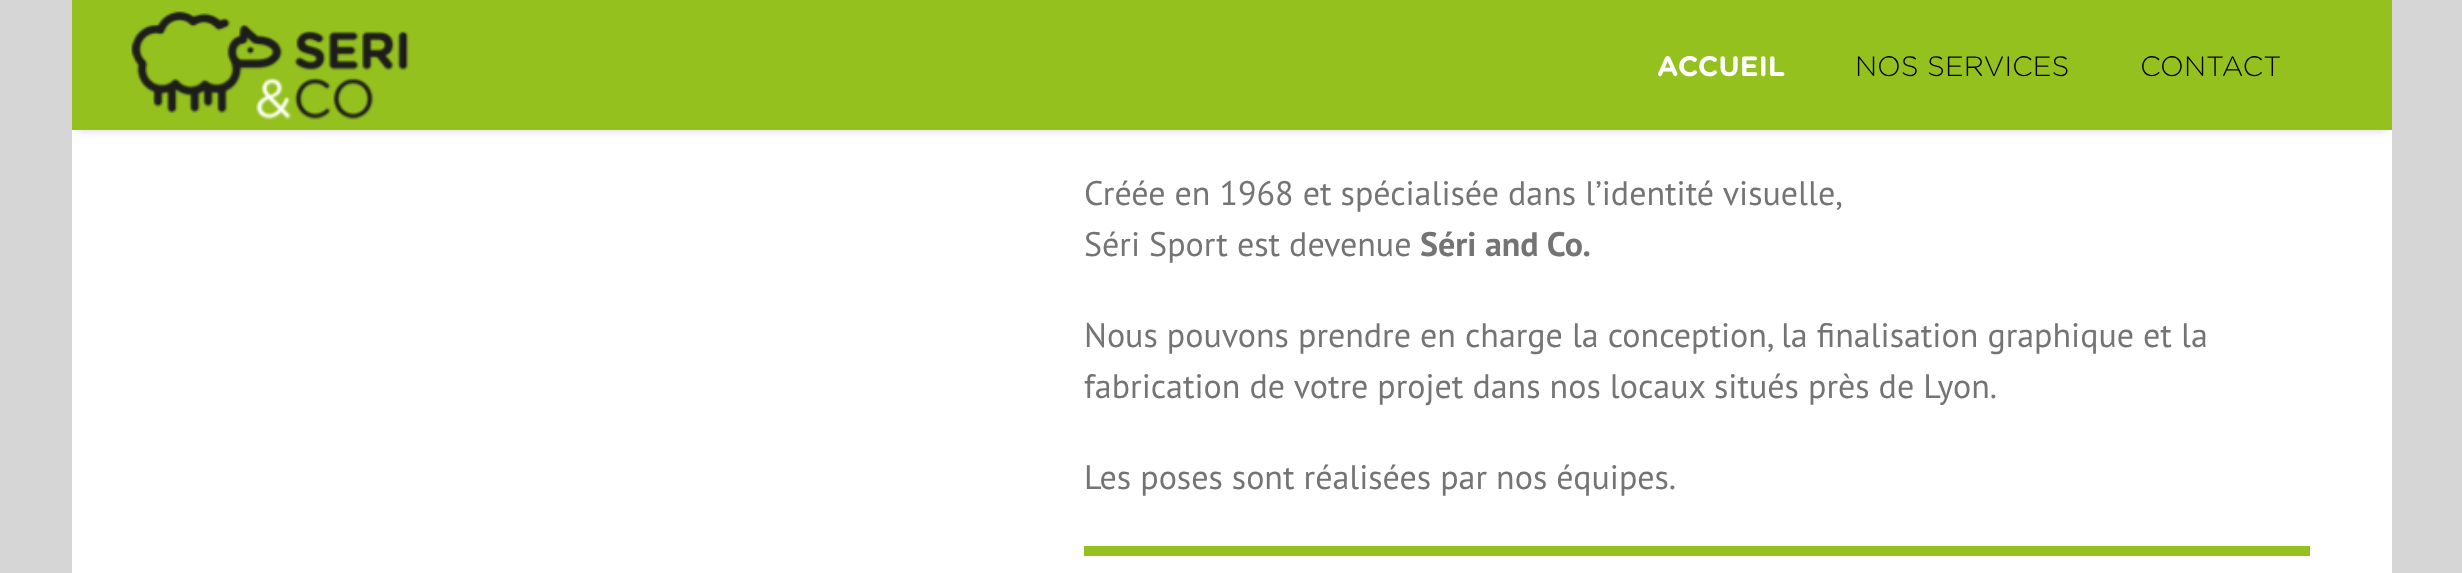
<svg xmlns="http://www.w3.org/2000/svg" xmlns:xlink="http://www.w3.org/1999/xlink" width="2462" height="573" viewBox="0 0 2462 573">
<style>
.cls-1{font:bold 28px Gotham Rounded;fill:#ffffff}
.cls-2{font:300 28px Gotham Rounded;fill:#000000}
.cls-3{font:34px PT Sans;fill:#747474}
.cls-4{font:bold 34px PT Sans;fill:#747474}
</style>
<rect width="100%" height="100%" fill="#d7d6d6"/>
<rect fill="#ffffff" x="72" y="130" width="2320" height="443"/>
<rect fill="#000000" fill-opacity="0.12" filter="blur(3px)" x="78" y="14" width="2308" height="118"/>
<rect fill="#95c11f" x="72" y="0" width="2320" height="130"/>
<image xlink:href="image0.png" x="131" y="10" width="279" height="110"/>
<rect fill="#95c11f" x="1084" y="546" width="1226" height="10"/>
<text class="cls-1" x="1657" y="76">ACCUEIL</text>
<text class="cls-2" x="1855" y="76">NOS SERVICES</text>
<text class="cls-2" x="2140" y="76">CONTACT</text>
<text class="cls-3"><tspan x="1084" y="205">Créée en 1968 et spécialisée dans l’identité visuelle,</tspan><tspan x="1084" y="256">Séri Sport est devenue</tspan></text>
<text class="cls-4" x="1420" y="256">Séri and Co.</text>
<text class="cls-3"><tspan x="1084" y="347">Nous pouvons prendre en charge la conception, la finalisation graphique et la</tspan><tspan x="1084" y="398">fabrication de votre projet dans nos locaux situés près de Lyon.</tspan></text>
<text class="cls-3" x="1084" y="489">Les poses sont réalisées par nos équipes.</text>
</svg>
